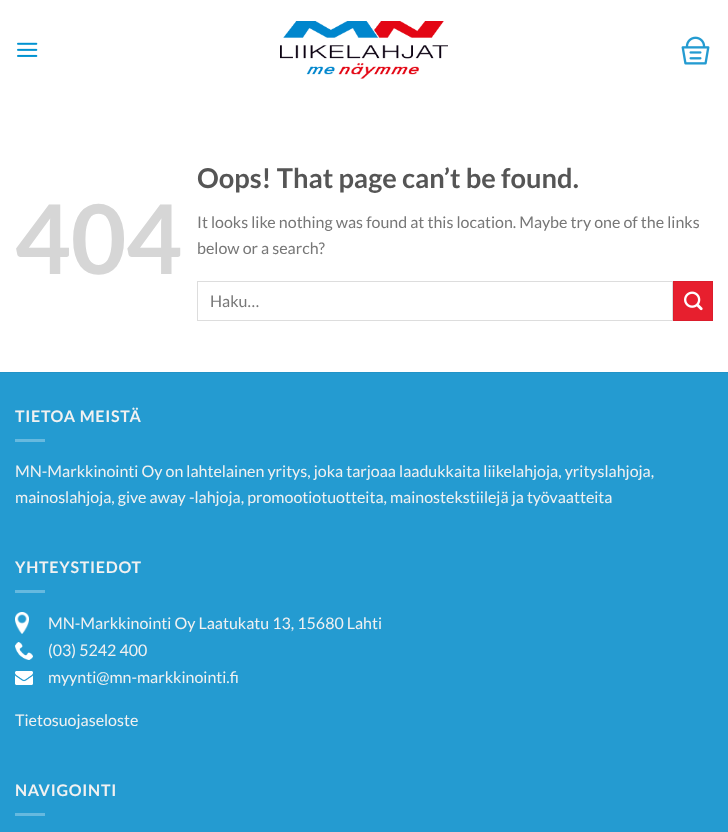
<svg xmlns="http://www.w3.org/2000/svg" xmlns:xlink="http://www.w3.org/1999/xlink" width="728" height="832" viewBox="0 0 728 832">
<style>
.cls-1{font:bold 96px Lato;fill:#d6d6d6}
.cls-2{font:bold 27.25px Lato;fill:#555555}
.cls-3{font:16px Lato;fill:#777777}
.cls-4{font:bold 16px Lato;letter-spacing:0.75px;fill:#f1f1f1}
.cls-5{font:16px Lato;fill:#f1f1f1}
</style>
<rect width="100%" height="100%" fill="#ffffff"/>
<image xlink:href="image0.png" x="17" y="42" width="21" height="15"/>
<image xlink:href="image1.png" x="280" y="21" width="168" height="58"/>
<image xlink:href="image2.png" x="681" y="36" width="29" height="29"/>
<rect fill="none" stroke="#dddddd" x="197.5" y="281.5" width="475" height="39"/>
<rect fill="#e71f2e" stroke="#db1d2c" x="673.5" y="281.5" width="39" height="39"/>
<image xlink:href="image3.png" x="684" y="291" width="19" height="20"/>
<rect fill="#249bd1" x="0" y="373" width="728" height="459"/>
<rect fill="#2293c7" x="0" y="372" width="728" height="1"/>
<rect fill="#66b9df" x="15" y="439" width="30" height="3"/>
<rect fill="#66b9df" x="15" y="590" width="30" height="3"/>
<image xlink:href="image4.png" x="15" y="612" width="14" height="22"/>
<image xlink:href="image5.png" x="15" y="642" width="18" height="18"/>
<image xlink:href="image6.png" x="15" y="671" width="18" height="14"/>
<rect fill="#66b9df" x="15" y="813" width="30" height="3"/>
<text class="cls-1" x="15" y="274">404</text>
<text class="cls-2" x="197" y="188">Oops! That page can’t be found.</text>
<text class="cls-3"><tspan x="197" y="228">It looks like nothing was found at this location. Maybe try one of the links</tspan><tspan x="197" y="254">below or a search?</tspan></text>
<text class="cls-3" x="210" y="307">Haku…</text>
<text class="cls-4" x="15" y="422">TIETOA MEISTÄ</text>
<text class="cls-5"><tspan x="15" y="477">MN-Markkinointi Oy on lahtelainen yritys, joka tarjoaa laadukkaita liikelahjoja, yrityslahjoja,</tspan><tspan x="15" y="503">mainoslahjoja, give away -lahjoja, promootiotuotteita, mainostekstiilejä ja työvaatteita</tspan></text>
<text class="cls-4" x="15" y="573">YHTEYSTIEDOT</text>
<text class="cls-5"><tspan x="48" y="629">MN-Markkinointi Oy Laatukatu 13, 15680 Lahti</tspan><tspan x="48" y="656">(03) 5242 400</tspan><tspan x="48" y="683">myynti@mn-markkinointi.fi</tspan></text>
<text class="cls-5" x="15" y="726">Tietosuojaseloste</text>
<text class="cls-4" x="15" y="796">NAVIGOINTI</text>
</svg>
